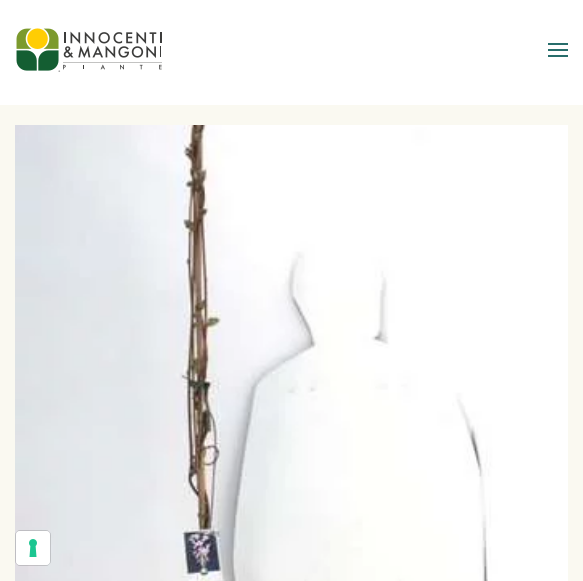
<svg xmlns="http://www.w3.org/2000/svg" xmlns:xlink="http://www.w3.org/1999/xlink" width="583" height="581" viewBox="0 0 583 581">
<rect width="100%" height="100%" fill="#faf9f1"/>
<rect fill="#ffffff" x="0" y="0" width="583" height="105"/>
<image xlink:href="image0.png" x="16" y="28" width="146" height="44"/>
<rect fill="#276d6b" x="548" y="43" width="20" height="2"/>
<rect fill="#276d6b" x="548" y="49" width="20" height="2"/>
<rect fill="#276d6b" x="548" y="55" width="20" height="2"/>
<image xlink:href="image1.png" x="15" y="125" width="553" height="456"/>
<rect fill="none" stroke="#000000" stroke-opacity="0.15" x="15.5" y="530.5" width="35" height="35" rx="4.5"/>
<rect fill="#ffffff" x="16" y="531" width="34" height="34" rx="4"/>
<image xlink:href="image2.png" x="29" y="539" width="8" height="18"/>
</svg>
